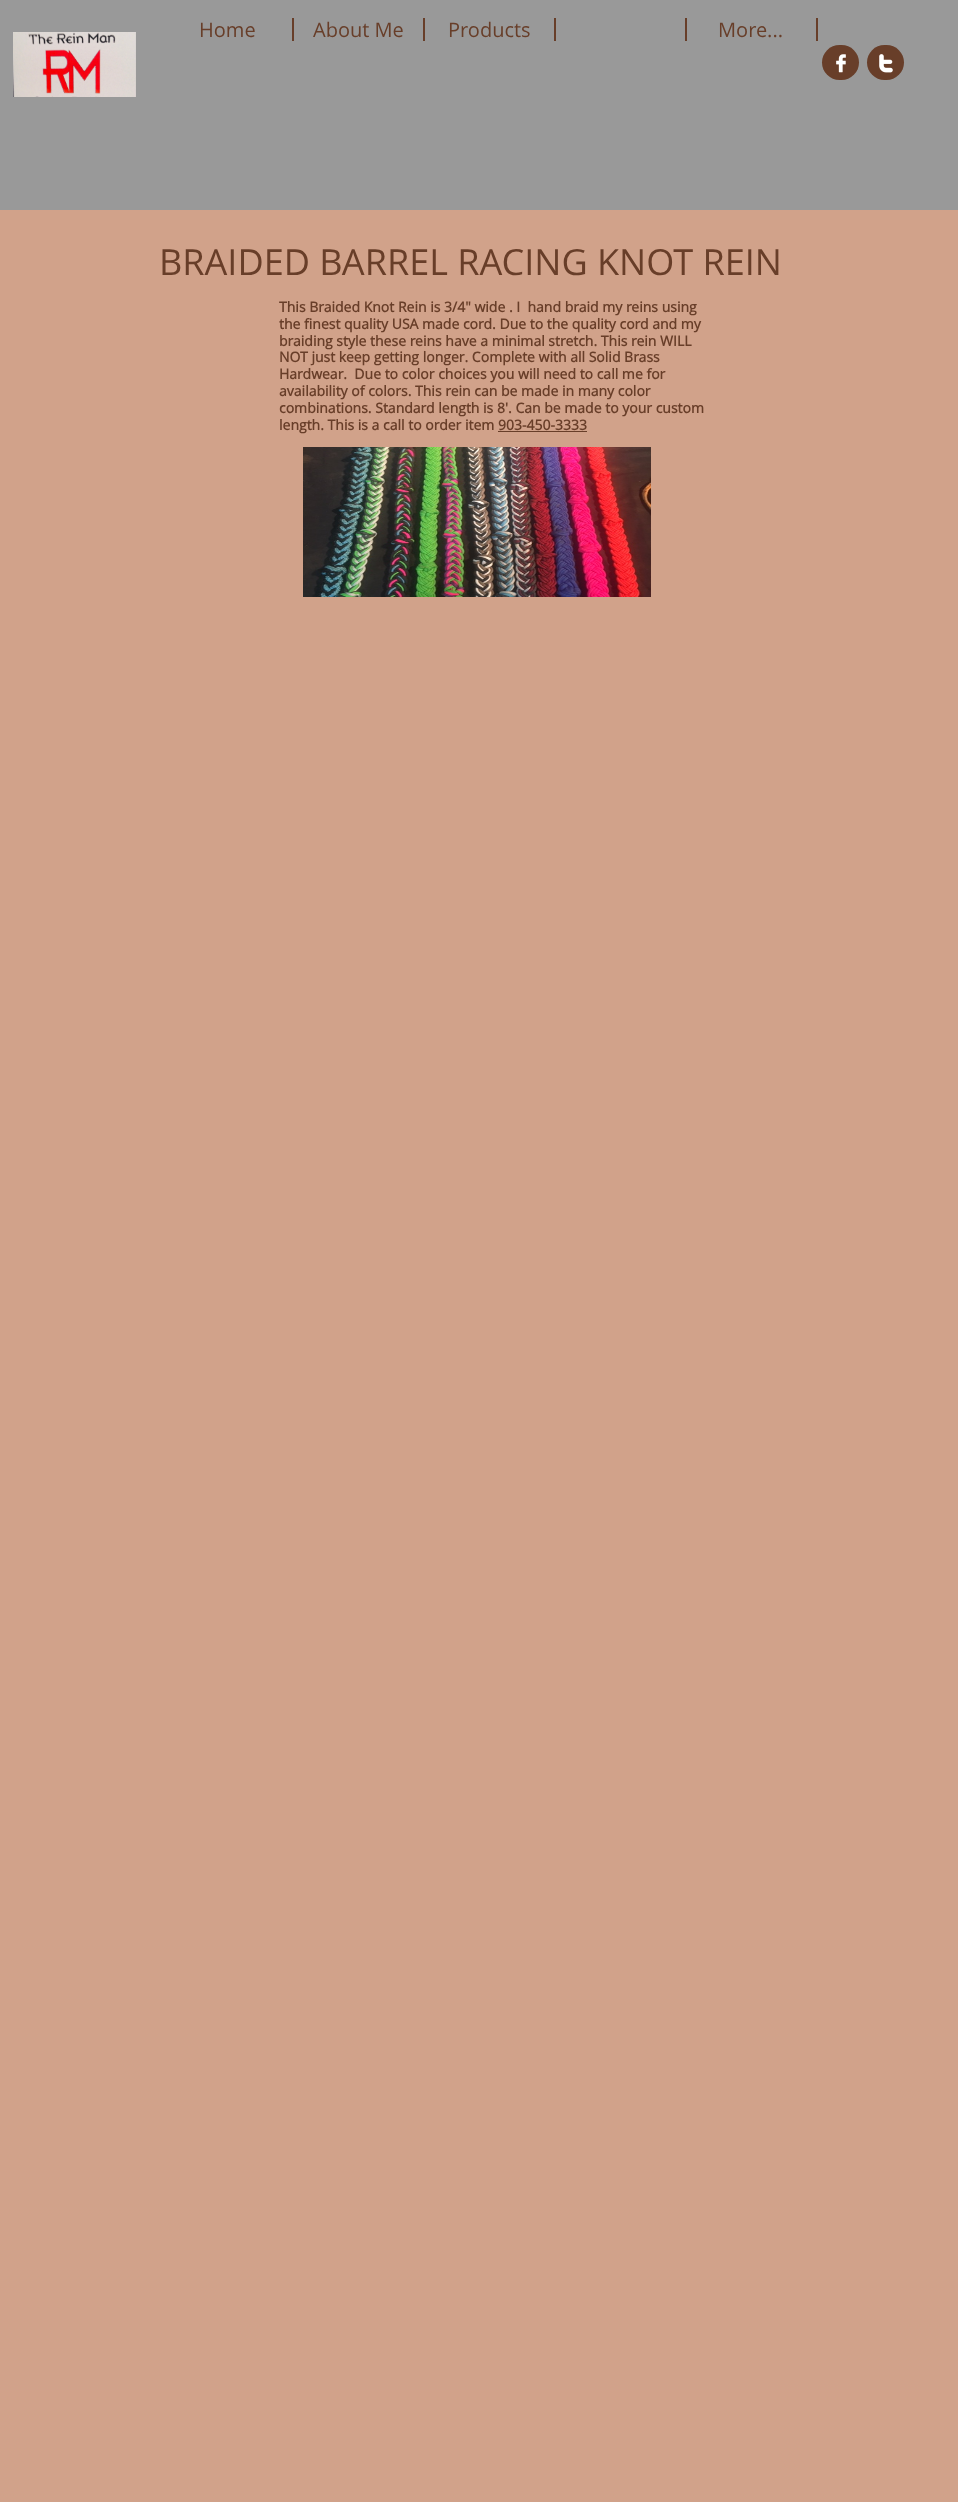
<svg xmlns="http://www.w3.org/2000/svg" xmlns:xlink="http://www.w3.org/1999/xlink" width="958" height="2502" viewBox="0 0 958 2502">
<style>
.cls-1{font:20px Open Sans;fill:#683e29}
.cls-2{font:36px Open Sans;fill:#683e29}
.cls-3{font:bold 14px Open Sans;fill:#683e29}
</style>
<rect width="100%" height="100%" fill="#d1a28a"/>
<rect fill="#999999" x="0" y="0" width="958" height="210"/>
<rect fill="#683e29" x="292" y="18" width="2" height="23"/>
<rect fill="#683e29" x="423" y="18" width="2" height="23"/>
<rect fill="#683e29" x="554" y="18" width="2" height="23"/>
<rect fill="#683e29" x="685" y="18" width="2" height="23"/>
<rect fill="#683e29" x="816" y="18" width="2" height="23"/>
<image xlink:href="image0.png" x="13" y="32" width="123" height="65"/>
<rect fill="#683e29" x="822" y="45" width="37" height="35" rx="17.5"/>
<image xlink:href="image1.png" x="836" y="54" width="10" height="19"/>
<rect fill="#683e29" x="867" y="45" width="37" height="35" rx="17.5"/>
<image xlink:href="image2.png" x="879" y="54" width="14" height="19"/>
<rect fill="#683e29" x="498" y="431" width="89" height="1"/>
<image xlink:href="image3.png" x="303" y="447" width="348" height="150"/>
<text class="cls-1" x="199" y="37">Home</text>
<text class="cls-1" x="313" y="37">About Me</text>
<text class="cls-1" x="448" y="37">Products</text>
<text class="cls-1" x="718" y="37">More...</text>
<text class="cls-2" x="159" y="275">BRAIDED BARREL RACING KNOT REIN</text>
<text class="cls-3" xml:space="preserve"><tspan x="279" y="312">This Braided Knot Rein is 3/4" wide . I  hand braid my reins using</tspan><tspan x="279" y="329">the finest quality USA made cord. Due to the quality cord and my</tspan><tspan x="279" y="346">braiding style these reins have a minimal stretch. This rein WILL</tspan><tspan x="279" y="362">NOT just keep getting longer. Complete with all Solid Brass</tspan><tspan x="279" y="379">Hardwear.  Due to color choices you will need to call me for</tspan><tspan x="279" y="396">availability of colors. This rein can be made in many color</tspan><tspan x="279" y="413">combinations. Standard length is 8'. Can be made to your custom</tspan><tspan x="279" y="430">length. This is a call to order item 903-450-3333</tspan></text>
</svg>
